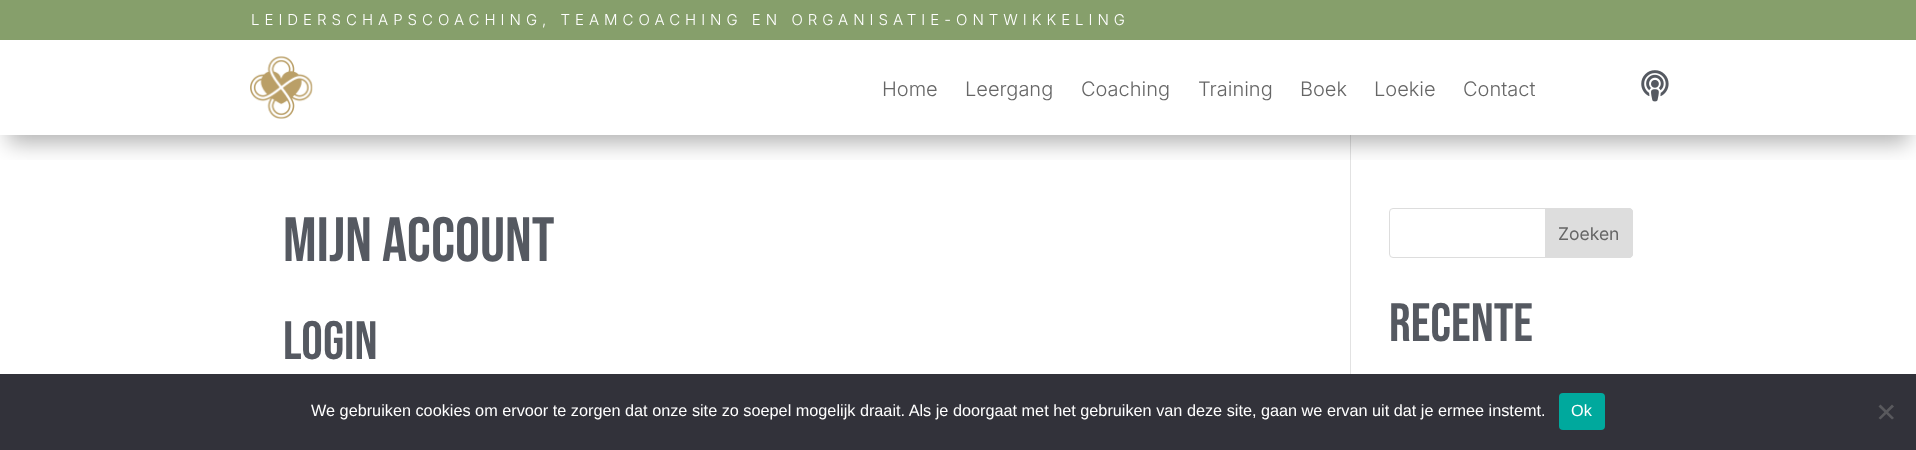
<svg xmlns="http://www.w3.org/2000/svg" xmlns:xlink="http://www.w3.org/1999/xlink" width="1916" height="450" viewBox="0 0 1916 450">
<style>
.cls-1{font:300 15px Inter;letter-spacing:5px;fill:#ffffff}
.cls-2{font:300 20px Inter;fill:#666666}
.cls-3{font:62.5px Bebas Neue;fill:#555961}
.cls-4{font:54px Bebas Neue;fill:#555961}
.cls-5{font:17.5px Inter;fill:#666666}
.cls-6{font:16.25px Liberation Sans;fill:#ffffff}
</style>
<defs>
<clipPath id="clip1"><rect x="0" y="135" width="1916" height="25"/></clipPath>
</defs>
<rect width="100%" height="100%" fill="#ffffff"/>
<rect fill="#869f6b" x="0" y="0" width="1916" height="40"/>
<rect fill="#e2e2e2" x="1350" y="135" width="1" height="239"/>
<g clip-path="url(#clip1)">
<rect fill="#000000" fill-opacity="0.3" filter="blur(11px)" x="8" y="63" width="1901" height="80"/>
</g>
<image xlink:href="image0.png" x="250" y="56" width="63" height="63"/>
<image xlink:href="image1.png" x="1641" y="70" width="28" height="32"/>
<rect fill="none" stroke="#dddddd" x="1389.5" y="208.5" width="243" height="49" rx="3.5"/>
<path fill="#dddddd" stroke="#dddddd" d="M1545.5 208.5H1629C1631 208.5 1632.5 210 1632.5 212V254C1632.5 256 1631 257.5 1629 257.5H1545.5Z"/>
<rect fill="#32323a" x="0" y="374" width="1916" height="76"/>
<rect fill="#00a99d" x="1559" y="393" width="46" height="37" rx="4"/>
<path fill="#59595d" d="M1892 404.5L1894 406.5L1880.5 419.5L1878.5 418Z"/>
<path fill="#59595d" d="M1878.5 406.5L1880.5 404.5L1894 418L1892 419.5Z"/>
<text class="cls-1" x="251" y="25">LEIDERSCHAPSCOACHING, TEAMCOACHING EN ORGANISATIE-ONTWIKKELING</text>
<text class="cls-2" x="882" y="96">Home</text>
<text class="cls-2" x="965" y="96">Leergang</text>
<text class="cls-2" x="1081" y="96">Coaching</text>
<text class="cls-2" x="1198" y="96">Training</text>
<text class="cls-2" x="1300" y="96">Boek</text>
<text class="cls-2" x="1374" y="96">Loekie</text>
<text class="cls-2" x="1463" y="96">Contact</text>
<text class="cls-3" x="283" y="261">Mijn account</text>
<text class="cls-4" x="283" y="359">Login</text>
<text class="cls-5" x="1558" y="240">Zoeken</text>
<text class="cls-4" x="1389" y="341">Recente</text>
<text class="cls-6" x="311" y="416">We gebruiken cookies om ervoor te zorgen dat onze site zo soepel mogelijk draait. Als je doorgaat met het gebruiken van deze site, gaan we ervan uit dat je ermee instemt.</text>
<text class="cls-6" x="1571" y="416">Ok</text>
</svg>
